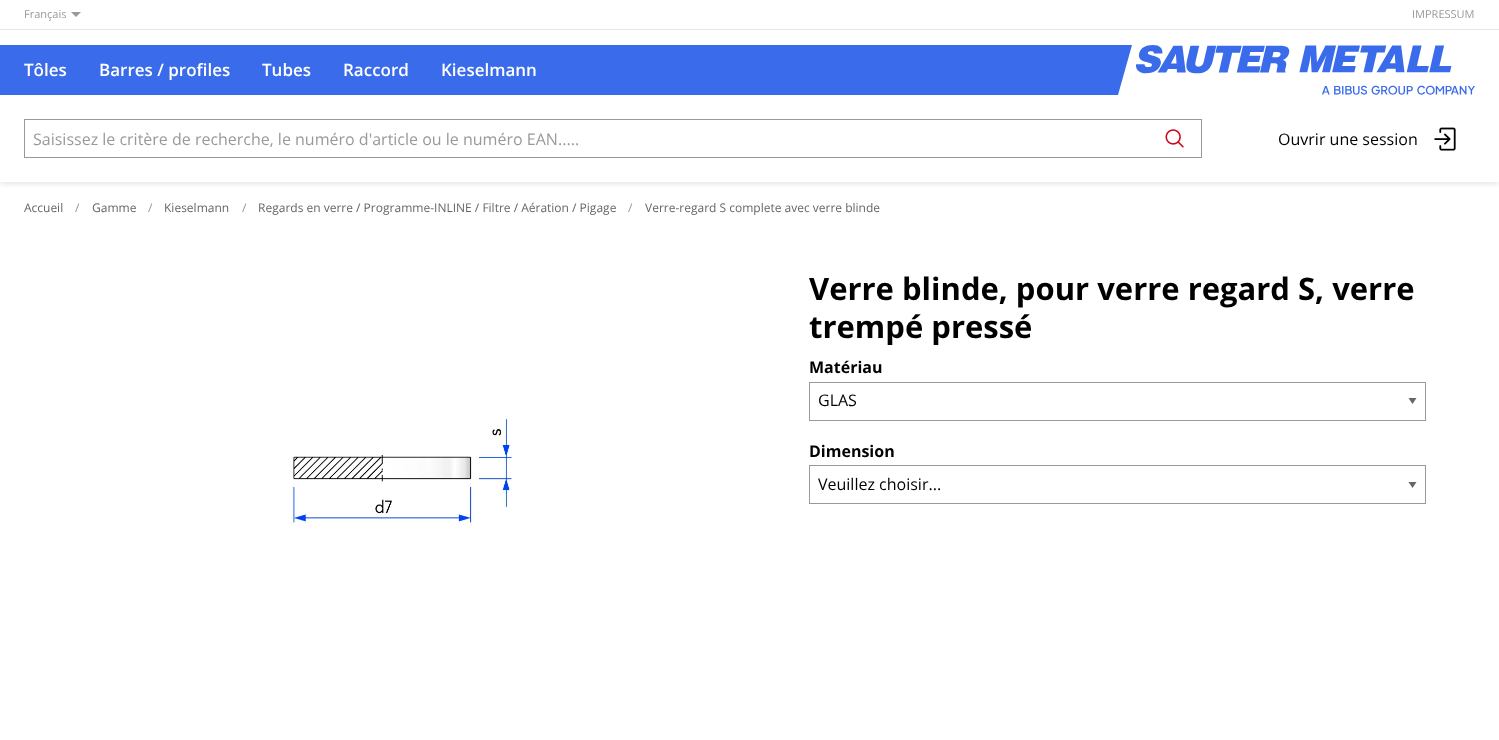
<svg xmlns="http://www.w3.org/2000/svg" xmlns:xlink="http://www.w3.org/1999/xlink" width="1499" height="740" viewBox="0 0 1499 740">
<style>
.cls-1{font:11px Open Sans;fill:#999999}
.cls-2{font:600 17px Open Sans;fill:#ffffff}
.cls-3{font:16px Open Sans;fill:#999999}
.cls-4{font:16px Open Sans;fill:#000000}
.cls-5{font:12px Open Sans;fill:#666666}
.cls-6{font:12px Open Sans;fill:#999999}
.cls-7{font:bold 31px Open Sans;fill:#000000}
.cls-8{font:bold 16px Open Sans;fill:#000000}
</style>
<defs>
<clipPath id="clip1"><rect x="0" y="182" width="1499" height="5"/></clipPath>
<clipPath id="clip2"><rect x="809" y="270" width="617" height="75"/></clipPath>
</defs>
<rect width="100%" height="100%" fill="#ffffff"/>
<g clip-path="url(#clip1)">
<rect fill="#010202" fill-opacity="0.1" filter="blur(3px)" x="0" y="2" width="1499" height="182"/>
</g>
<rect fill="#e5e5e5" x="0" y="29" width="1499" height="1"/>
<path fill="#999999" d="M71 12H81L76 17Z"/>
<rect fill="#396bea" x="0" y="45" width="1102" height="50"/>
<path fill="#396bea" d="M1102 45H1132L1118 95H1088Z"/>
<image xlink:href="image0.png" x="1136" y="45" width="339" height="50"/>
<rect fill="none" stroke="#999999" x="24.5" y="119.5" width="1177" height="38"/>
<image xlink:href="image1.png" x="1165" y="129" width="19" height="19"/>
<image xlink:href="image2.png" x="1434" y="127" width="22" height="24"/>
<image xlink:href="image3.png" x="292" y="418" width="221" height="107"/>
<path fill="#666666" d="M1408.5 398H1416.5L1412.5 404Z"/>
<rect fill="none" stroke="#999999" x="809.5" y="382.5" width="616" height="38"/>
<path fill="#666666" d="M1408.5 482H1416.5L1412.5 488Z"/>
<rect fill="none" stroke="#999999" x="809.5" y="465.5" width="616" height="38"/>
<text class="cls-1" x="24" y="18">Français</text>
<text class="cls-1" x="1412" y="18">IMPRESSUM</text>
<text class="cls-2" x="24" y="76">Tôles</text>
<text class="cls-2" x="99" y="76">Barres / profiles</text>
<text class="cls-2" x="262" y="76">Tubes</text>
<text class="cls-2" x="343" y="76">Raccord</text>
<text class="cls-2" x="441" y="76">Kieselmann</text>
<text class="cls-3" x="33" y="145">Saisissez le critère de recherche, le numéro d'article ou le numéro EAN.....</text>
<text class="cls-4" x="1278" y="145">Ouvrir une session</text>
<text class="cls-5" x="24" y="212">Accueil</text>
<text class="cls-6" x="75" y="212">/</text>
<text class="cls-5" x="92" y="212">Gamme</text>
<text class="cls-6" x="148" y="212">/</text>
<text class="cls-5" x="164" y="212">Kieselmann</text>
<text class="cls-6" x="242" y="212">/</text>
<text class="cls-5" x="258" y="212">Regards en verre / Programme-INLINE / Filtre / Aération / Pigage</text>
<text class="cls-6" x="628" y="212">/</text>
<text class="cls-5" x="645" y="212">Verre-regard S complete avec verre blinde</text>
<text class="cls-7" x="809" y="300">Verre blinde, pour verre regard S, verre</text>
<g clip-path="url(#clip2)">
<text class="cls-7" x="809" y="338">trempé pressé</text>
</g>
<text class="cls-8" x="809" y="373">Matériau</text>
<text class="cls-4" x="818" y="406">GLAS</text>
<text class="cls-8" x="809" y="457">Dimension</text>
<text class="cls-4" x="818" y="490">Veuillez choisir...</text>
</svg>
